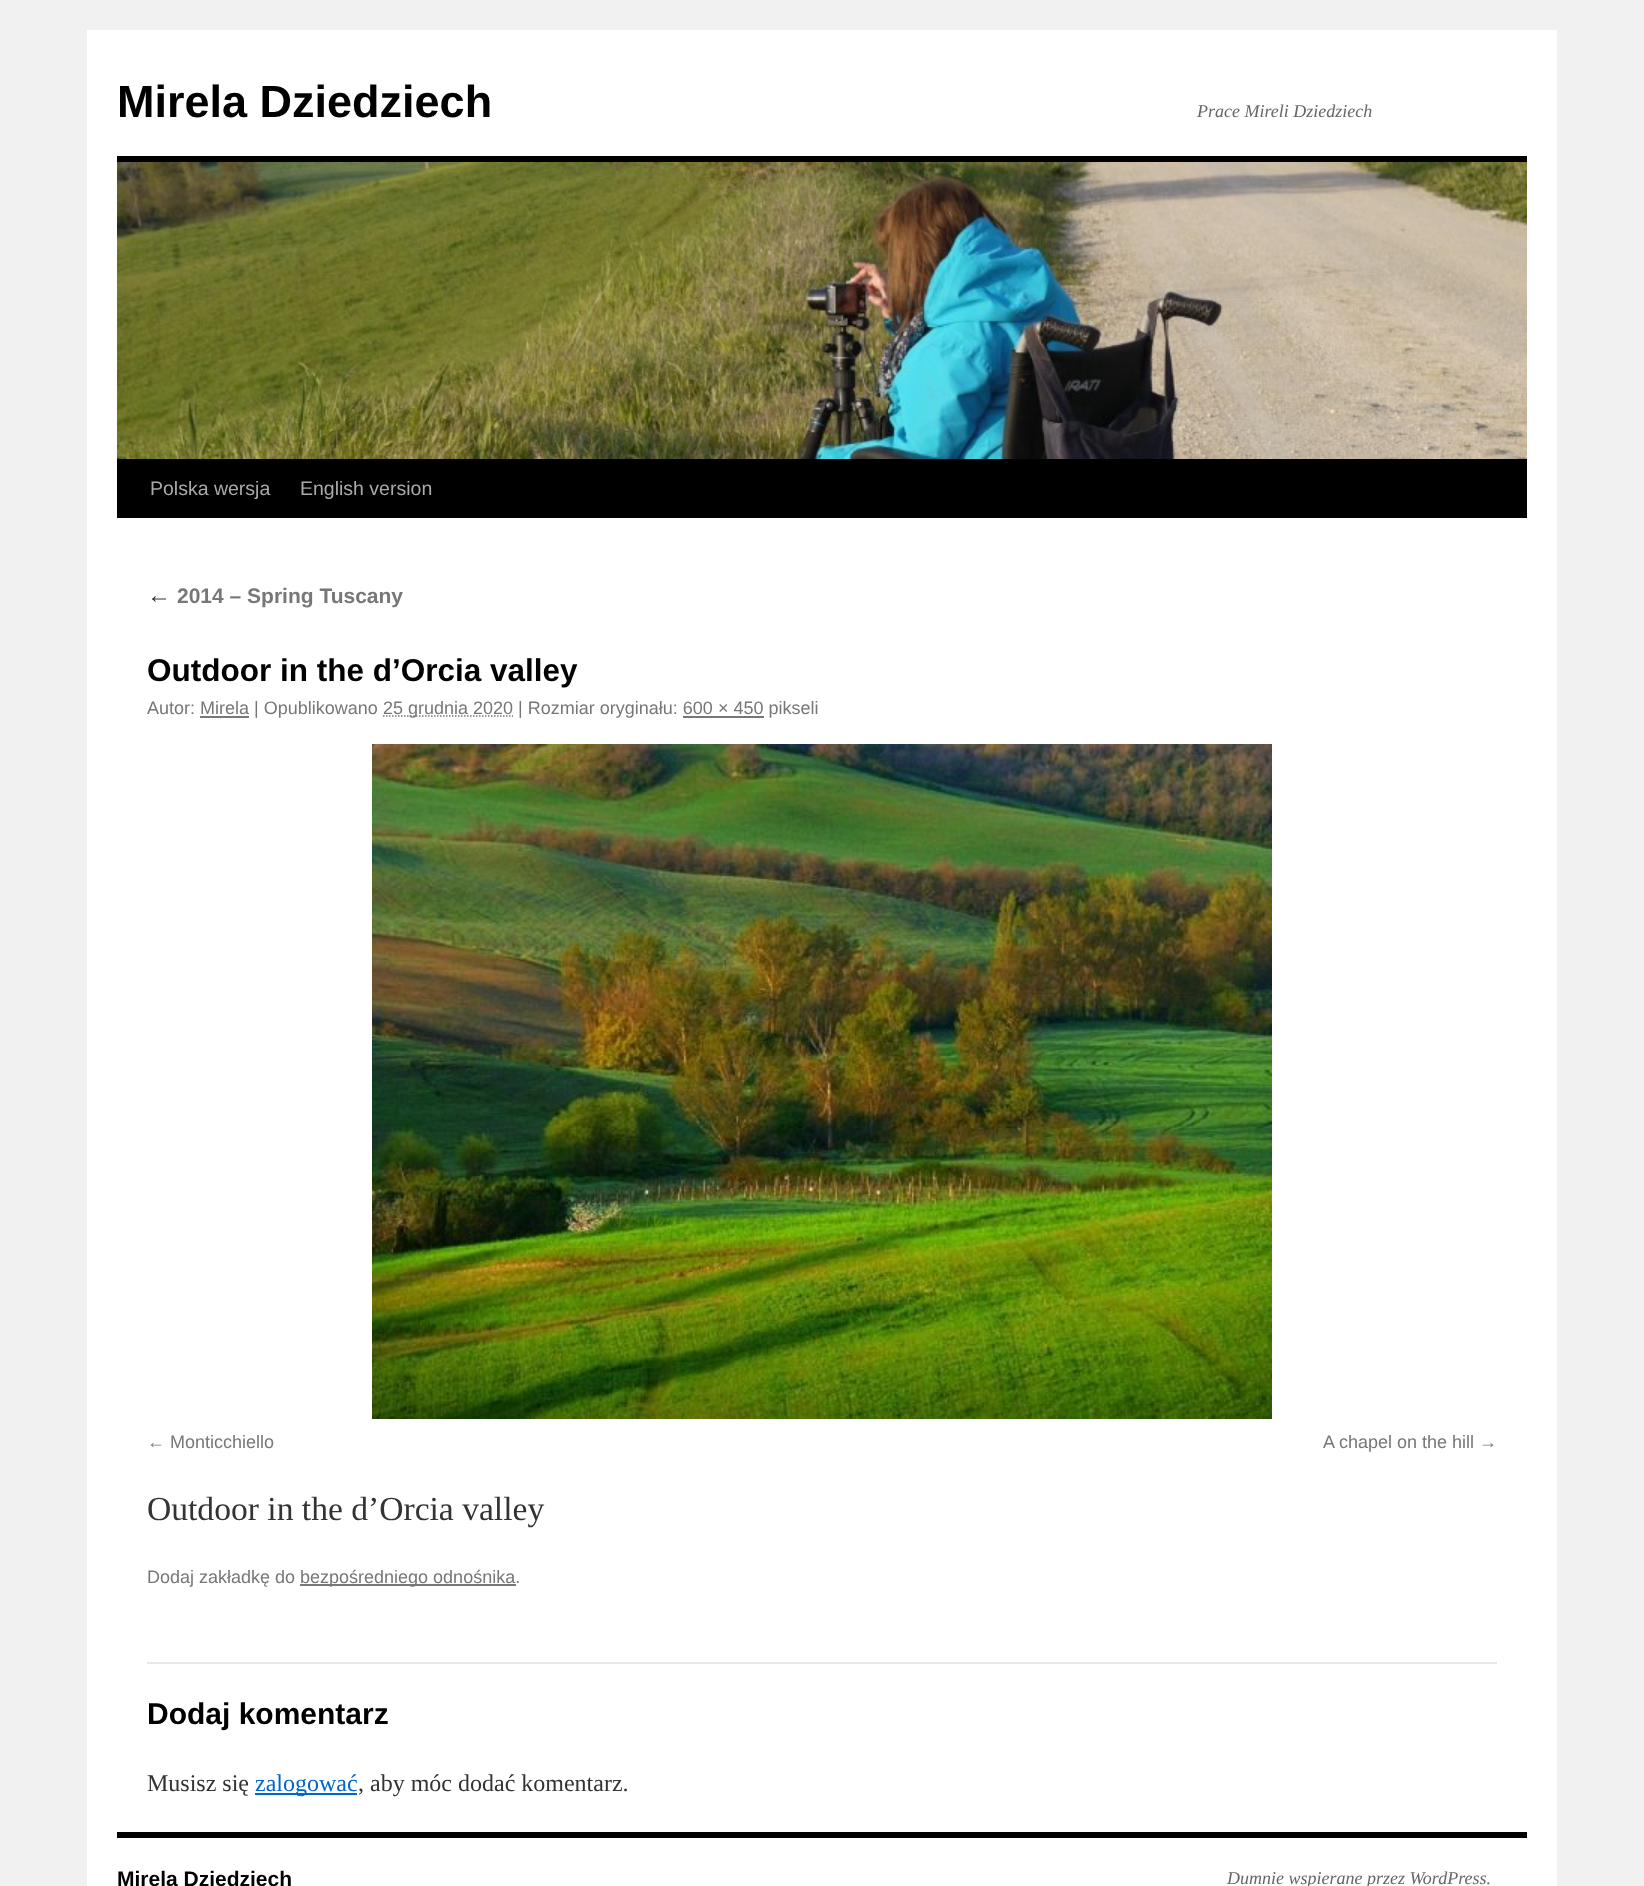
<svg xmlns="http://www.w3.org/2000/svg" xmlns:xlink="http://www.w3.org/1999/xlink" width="1644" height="1886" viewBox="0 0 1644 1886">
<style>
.cls-1{font:bold 45px Liberation Sans;fill:#000000}
.cls-2{font:italic 18px Liberation Serif;fill:#666666}
.cls-3{font:19.5px Liberation Sans;fill:#aaaaaa}
.cls-4{font:italic 24px Liberation Serif;fill:#333333}
.cls-5{font:bold 21px Liberation Sans;fill:#777777}
.cls-6{font:bold 31.5px Liberation Sans;fill:#000000}
.cls-7{font:18px Liberation Sans;fill:#777777}
.cls-8{font:33.6px Liberation Serif;fill:#333333}
.cls-9{font:bold 30px Liberation Sans;fill:#000000}
.cls-10{font:24px Liberation Serif;fill:#333333}
.cls-11{font:24px Liberation Serif;fill:#0066cc}
.cls-12{font:bold 21px Liberation Sans;fill:#000000}
</style>
<rect width="100%" height="100%" fill="#f1f1f1"/>
<rect fill="#ffffff" x="87" y="30" width="1470" height="1856"/>
<rect fill="#000000" x="117" y="156" width="1410" height="6"/>
<rect fill="#000000" x="117" y="459" width="1410" height="59"/>
<image xlink:href="image0.png" x="117" y="162" width="1410" height="297"/>
<path fill="none" stroke="#777777" stroke-width="1.5" stroke-dasharray="1.5 1.5" d="M383 716H513"/>
<rect fill="#777777" x="200" y="716" width="49" height="2"/>
<rect fill="#777777" x="683" y="716" width="81" height="2"/>
<image xlink:href="image1.png" x="372" y="744" width="900" height="675"/>
<rect fill="#777777" x="300" y="1584" width="216" height="2"/>
<rect fill="#e7e7e7" x="147" y="1662" width="1350" height="2"/>
<rect fill="#0066cc" x="255" y="1793" width="102" height="2"/>
<rect fill="#000000" x="117" y="1832" width="1410" height="6"/>
<text class="cls-1" x="117" y="117">Mirela Dziedziech</text>
<text class="cls-2" x="1197" y="117">Prace Mireli Dziedziech</text>
<text class="cls-3" x="150" y="495">Polska wersja</text>
<text class="cls-3" x="300" y="495">English version</text>
<text class="cls-4" x="147" y="603">←</text>
<text class="cls-5" x="177" y="603">2014 – Spring Tuscany</text>
<text class="cls-6" x="147" y="681">Outdoor in the d’Orcia valley</text>
<text class="cls-7" x="147" y="714">Autor: Mirela | Opublikowano</text>
<text class="cls-7" x="383" y="714">25 grudnia 2020 | Rozmiar oryginału: 600 × 450 pikseli</text>
<text class="cls-7" x="147" y="1448">← Monticchiello</text>
<text class="cls-7" x="1323" y="1448">A chapel on the hill →</text>
<text class="cls-8" x="147" y="1520">Outdoor in the d’Orcia valley</text>
<text class="cls-7" x="147" y="1583">Dodaj zakładkę do</text>
<text class="cls-7" x="300" y="1583">bezpośredniego odnośnika.</text>
<text class="cls-9" x="147" y="1724">Dodaj komentarz</text>
<text class="cls-10" x="147" y="1791">Musisz się</text>
<text class="cls-11" x="255" y="1791">zalogować</text>
<text class="cls-10" x="358" y="1791">, aby móc dodać komentarz.</text>
<text class="cls-12" x="117" y="1886">Mirela Dziedziech</text>
<text class="cls-2" x="1227" y="1884">Dumnie wspierane przez WordPress.</text>
</svg>
